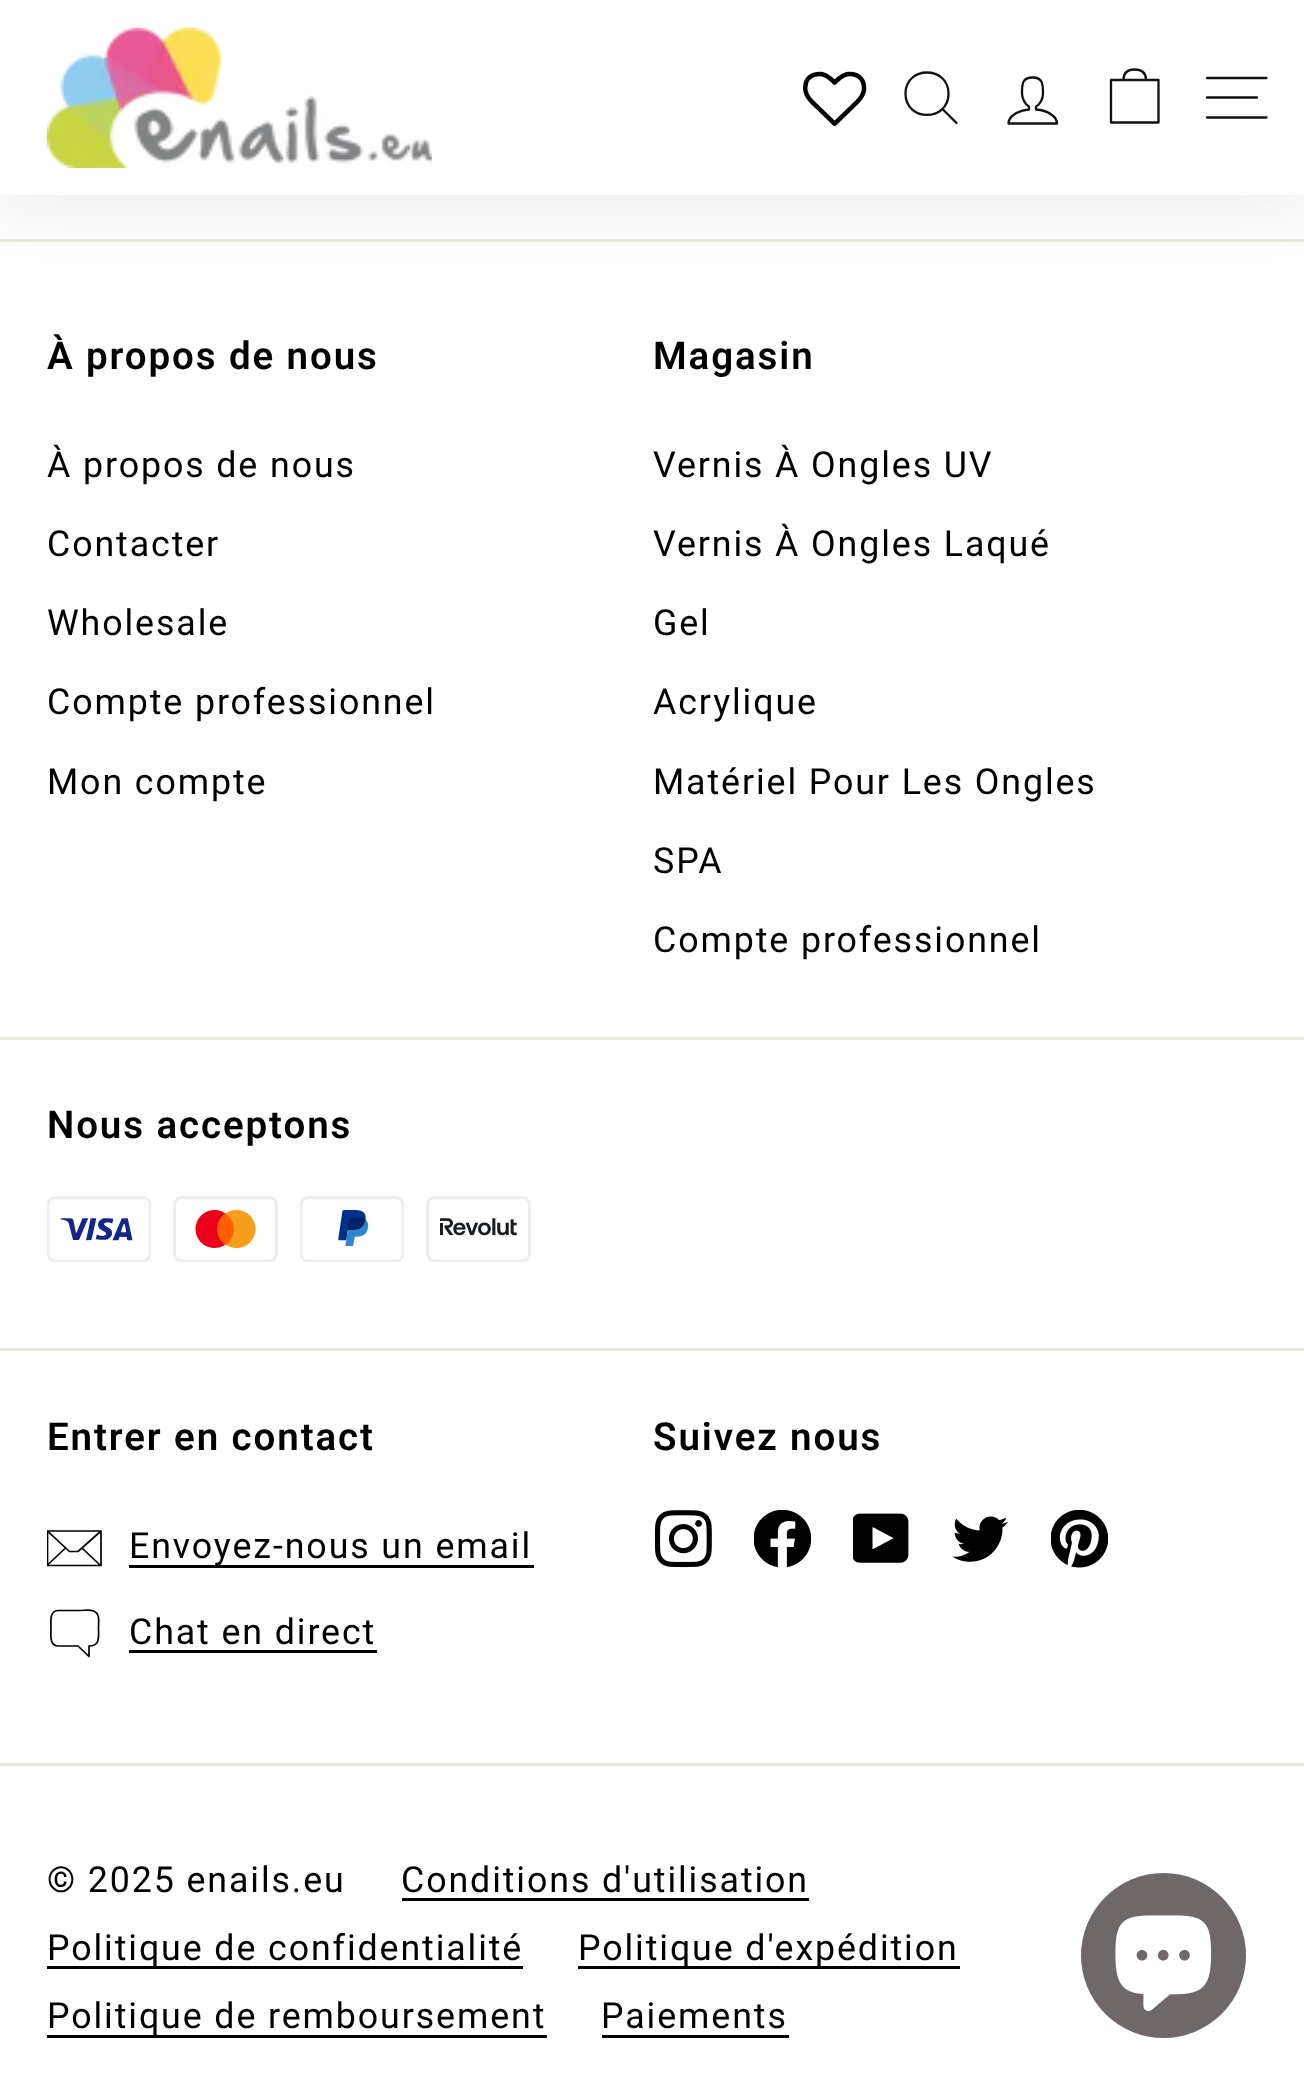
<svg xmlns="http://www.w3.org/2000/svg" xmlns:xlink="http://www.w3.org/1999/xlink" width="1304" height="2094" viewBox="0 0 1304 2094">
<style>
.cls-1{font:600 38.5px Roboto;letter-spacing:1.9px;fill:#000000}
.cls-2{font:35.75px Roboto;letter-spacing:1.9px;fill:#000000}
</style>
<defs>
<clipPath id="clip1"><rect x="47" y="1521" width="55" height="55"/></clipPath>
</defs>
<rect width="100%" height="100%" fill="#ffffff"/>
<rect fill="#e8e8e1" x="0" y="239" width="1304" height="3"/>
<rect fill="#000000" fill-opacity="0.1" filter="blur(34.5px)" x="0" y="0" width="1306" height="195"/>
<rect fill="#ffffff" x="0" y="0" width="1304" height="195"/>
<image xlink:href="image0.png" x="46" y="27" width="386" height="141"/>
<image xlink:href="image1.png" x="803" y="71" width="64" height="55"/>
<path fill="none" stroke="#111111" stroke-width="2.3" stroke-linecap="round" stroke-linejoin="round" d="M948.5 93.5C948.5 122 905.5 122 905.5 93.5C905.5 65.5 948.5 65.5 948.5 93.5ZM956.5 123L942.5 109"/>
<path fill="none" stroke="#111111" stroke-width="2.3" stroke-linecap="round" stroke-linejoin="round" d="M1036 109.5V106.5C1040 104.5 1043 99 1043 93.5C1043 84.5 1043 77.5 1032.5 77.5C1022 77.5 1022 84.5 1022 93.5C1022 99 1025.5 104.5 1029 106.5V109.5C1017.5 110.5 1008.5 116.5 1008.5 123.5H1057C1057 116.5 1048 110.5 1036 109.5Z"/>
<path fill="none" stroke="#111111" stroke-width="2.3" stroke-linecap="round" stroke-linejoin="round" d="M1123.5 80C1123.5 71.5 1128.5 69.5 1134.5 69.5C1141 69.5 1146 71.5 1146 80M1111 80H1158.5V122.5H1111Z"/>
<path fill="none" stroke="#111111" stroke-width="2.3" stroke-linecap="round" stroke-linejoin="round" d="M1207 78H1266.5M1207 97.5H1257M1207 117.5H1266.5"/>
<rect fill="#e8e8e1" x="0" y="1037" width="1304" height="3"/>
<image xlink:href="image2.png" x="47" y="1196" width="104" height="66"/>
<image xlink:href="image3.png" x="173" y="1196" width="105" height="66"/>
<image xlink:href="image4.png" x="300" y="1196" width="104" height="66"/>
<image xlink:href="image5.png" x="426" y="1196" width="105" height="66"/>
<rect fill="#e8e8e1" x="0" y="1348" width="1304" height="3"/>
<g clip-path="url(#clip1)">
<path fill="none" stroke="#000000" stroke-width="1.7" stroke-linecap="round" stroke-linejoin="round" d="M101 1565.5H47.5V1531H101ZM47.5 1531L69.5 1551.5H78L101 1531M65.5 1548L48 1564.5M100.5 1565.5L82 1548"/>
</g>
<rect fill="#000000" x="129" y="1565" width="405" height="3"/>
<path fill="none" stroke="#000000" stroke-width="1.7" stroke-linecap="round" stroke-linejoin="round" d="M58.5 1646C49 1646 51 1634.5 51 1628C51 1622 49 1610.5 58.5 1610.5H80C84 1610.5 89.5 1609 93.5 1611C100.5 1613.5 98.5 1622.5 98.5 1628C98.5 1636.5 100.5 1646 89 1646V1656.5L78 1646Z"/>
<rect fill="#000000" x="129" y="1650" width="248" height="3"/>
<image xlink:href="image6.png" x="655" y="1510" width="57" height="58"/>
<image xlink:href="image7.png" x="754" y="1510" width="57" height="58"/>
<image xlink:href="image8.png" x="853" y="1513" width="56" height="50"/>
<image xlink:href="image9.png" x="952" y="1516" width="56" height="46"/>
<image xlink:href="image10.png" x="1051" y="1510" width="57" height="58"/>
<rect fill="#e8e8e1" x="0" y="1763" width="1304" height="3"/>
<rect fill="#000000" x="402" y="1898" width="407" height="3"/>
<rect fill="#000000" x="47" y="1966" width="476" height="3"/>
<rect fill="#000000" x="578" y="1966" width="382" height="3"/>
<rect fill="#000000" x="47" y="2035" width="500" height="3"/>
<rect fill="#000000" x="602" y="2035" width="187" height="3"/>
<circle fill="#6e6868" cx="1163.5" cy="1955.5" r="82.5"/>
<image xlink:href="image11.png" x="1115" y="1915" width="97" height="97"/>
<text class="cls-1" x="47" y="369">À propos de nous</text>
<text class="cls-2" x="47" y="477">À propos de nous</text>
<text class="cls-2" x="47" y="556">Contacter</text>
<text class="cls-2" x="47" y="635">Wholesale</text>
<text class="cls-2" x="47" y="714">Compte professionnel</text>
<text class="cls-2" x="47" y="794">Mon compte</text>
<text class="cls-1" x="653" y="369">Magasin</text>
<text class="cls-2" x="653" y="477">Vernis À Ongles UV</text>
<text class="cls-2" x="653" y="556">Vernis À Ongles Laqué</text>
<text class="cls-2" x="653" y="635">Gel</text>
<text class="cls-2" x="653" y="714">Acrylique</text>
<text class="cls-2" x="653" y="794">Matériel Pour Les Ongles</text>
<text class="cls-2" x="653" y="873">SPA</text>
<text class="cls-2" x="653" y="952">Compte professionnel</text>
<text class="cls-1" x="47" y="1138">Nous acceptons</text>
<text class="cls-1" x="47" y="1450">Entrer en contact</text>
<text class="cls-2" x="129" y="1558">Envoyez-nous un email</text>
<text class="cls-2" x="129" y="1644">Chat en direct</text>
<text class="cls-1" x="653" y="1450">Suivez nous</text>
<text class="cls-2" x="47" y="1892">© 2025 enails.eu</text>
<text class="cls-2" x="401" y="1892">Conditions d'utilisation</text>
<text class="cls-2" x="47" y="1960">Politique de confidentialité</text>
<text class="cls-2" x="578" y="1960">Politique d'expédition</text>
<text class="cls-2" x="47" y="2028">Politique de remboursement</text>
<text class="cls-2" x="601" y="2028">Paiements</text>
</svg>
